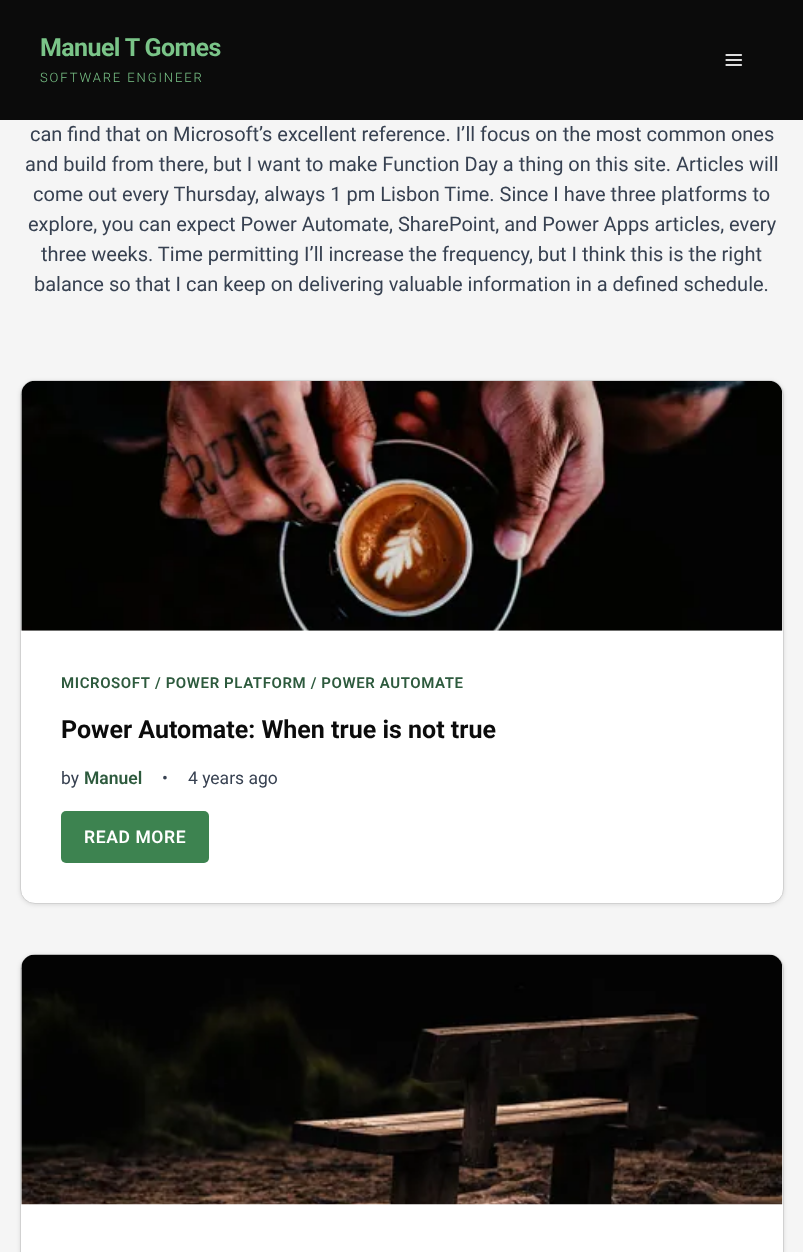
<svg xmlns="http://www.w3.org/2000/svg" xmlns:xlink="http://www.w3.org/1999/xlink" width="803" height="1252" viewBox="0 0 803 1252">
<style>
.cls-1{font:bold 25px Roboto;letter-spacing:-0.6px;fill:#7ac488}
.cls-2{font:300 13px Roboto;letter-spacing:1.9px;fill:#7ac488}
.cls-3{font:20px Roboto;fill:#374151}
.cls-4{font:600 15px Roboto;letter-spacing:0.6px;fill:#2d5a3d}
.cls-5{font:bold 25px Roboto;fill:#0b0b0b}
.cls-6{font:17.5px Roboto;fill:#374151}
.cls-7{font:600 17.5px Roboto;fill:#2d5a3d}
.cls-8{font:600 17.5px Roboto;letter-spacing:0.6px;fill:#ffffff}
</style>
<rect width="100%" height="100%" fill="#f5f5f5"/>
<rect fill="#0b0b0b" x="0" y="0" width="803" height="120"/>
<image xlink:href="image0.png" x="725" y="54" width="18" height="12"/>
<rect fill="#000000" fill-opacity="0.1" filter="blur(2px)" x="20" y="381" width="764" height="524" rx="15"/>
<rect fill="#ffffff" stroke="#d1d1d1" x="20.5" y="380.5" width="763" height="523" rx="14.5"/>
<image xlink:href="image1.png" x="21" y="381" width="762" height="250"/>
<rect fill="#3d8350" x="61" y="811" width="148" height="52" rx="5"/>
<rect fill="#000000" fill-opacity="0.1" filter="blur(2px)" x="20" y="955" width="764" height="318" rx="15"/>
<rect fill="#ffffff" stroke="#d1d1d1" x="20.5" y="954.5" width="763" height="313" rx="14.5"/>
<image xlink:href="image2.png" x="21" y="954" width="762" height="251"/>
<text class="cls-1" x="40" y="56">Manuel T Gomes</text>
<text class="cls-2" x="40" y="82">SOFTWARE ENGINEER</text>
<text class="cls-3" x="30" y="141">can find that on Microsoft’s excellent reference. I’ll focus on the most common ones</text>
<text class="cls-3" x="25" y="171">and build from there, but I want to make Function Day a thing on this site. Articles will</text>
<text class="cls-3" x="33" y="201">come out every Thursday, always 1 pm Lisbon Time. Since I have three platforms to</text>
<text class="cls-3" x="28" y="231">explore, you can expect Power Automate, SharePoint, and Power Apps articles, every</text>
<text class="cls-3" x="41" y="261">three weeks. Time permitting I’ll increase the frequency, but I think this is the right</text>
<text class="cls-3" x="34" y="291">balance so that I can keep on delivering valuable information in a defined schedule.</text>
<text class="cls-4" x="61" y="688">MICROSOFT</text>
<text class="cls-4" x="155" y="688">/ POWER PLATFORM / POWER AUTOMATE</text>
<text class="cls-5" x="61" y="738">Power Automate: When true is not true</text>
<text class="cls-6" x="61" y="784">by</text>
<text class="cls-7" x="84" y="784">Manuel</text>
<text class="cls-6" x="162" y="784">•</text>
<text class="cls-6" x="188" y="784">4 years ago</text>
<text class="cls-8" x="84" y="843">READ MORE</text>
</svg>
